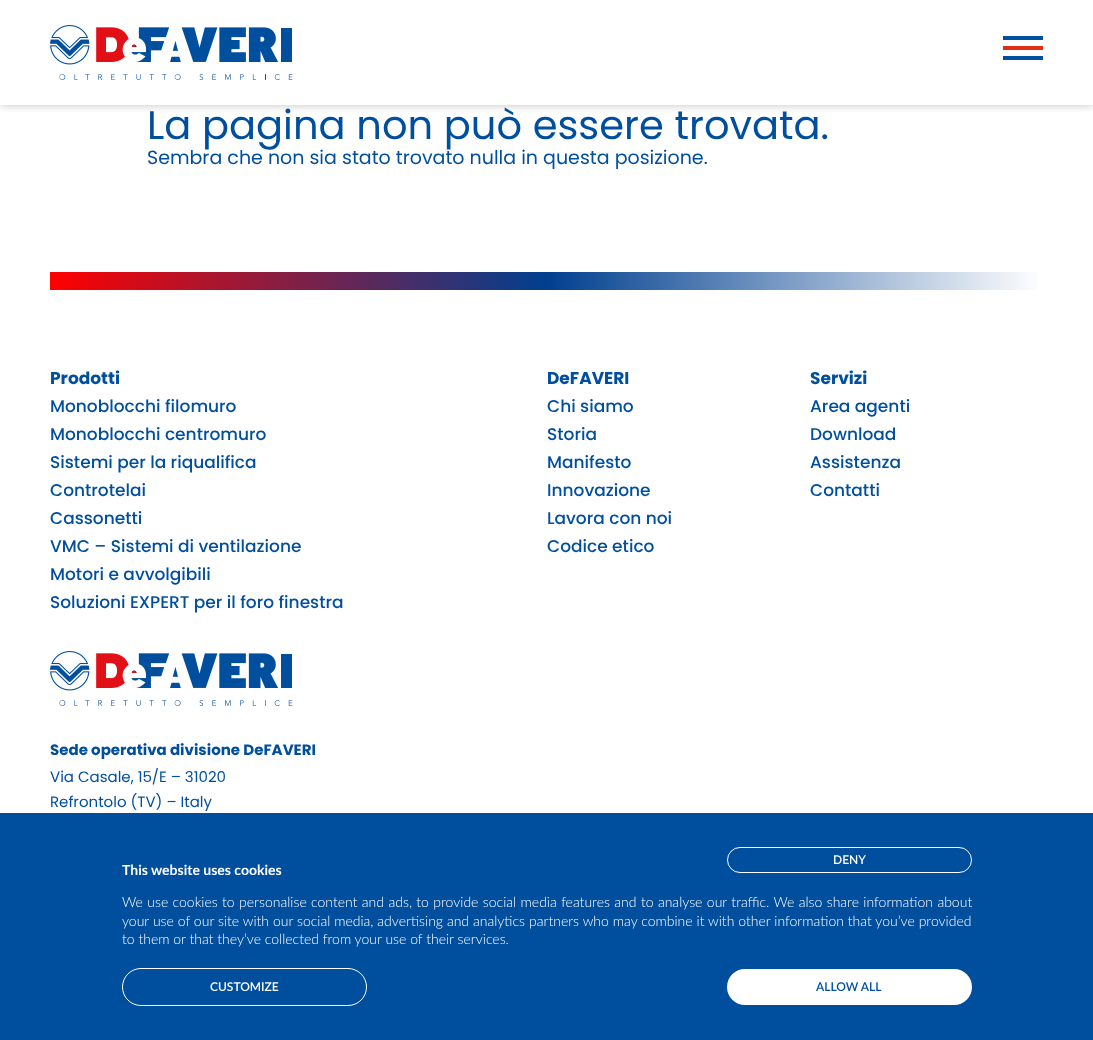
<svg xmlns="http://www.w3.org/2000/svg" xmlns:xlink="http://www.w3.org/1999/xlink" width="1093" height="1040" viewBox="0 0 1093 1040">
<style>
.cls-1{font:40px Poppins;fill:#004f9f}
.cls-2{font:19px Poppins;fill:#004f9f}
.cls-3{font:bold 17px Poppins;fill:#004f9f}
.cls-4{font:500 17px Poppins;fill:#004f9f}
.cls-5{font:bold 15px Poppins;fill:#004f9f}
.cls-6{font:15px Poppins;fill:#004f9f}
.cls-7{font:bold 14px Lato;fill:#ffffff}
.cls-8{font:600 12px Lato;fill:#ffffff}
.cls-9{font:600 12px Lato;fill:#004f9f}
.cls-10{font:300 14px Lato;fill:#ffffff}
</style>
<defs>
<clipPath id="clip1"><rect x="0" y="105" width="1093" height="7"/></clipPath>
<linearGradient id="g1" gradientUnits="userSpaceOnUse" x1="50" y1="281" x2="1043" y2="281"><stop offset="0" stop-color="#ffffff"/><stop offset="0" stop-color="#ff0000"/><stop offset="0.5" stop-color="#003f8f"/><stop offset="1" stop-color="#ffffff"/></linearGradient>
</defs>
<rect width="100%" height="100%" fill="#ffffff"/>
<g clip-path="url(#clip1)">
<rect fill="#000000" fill-opacity="0.24" filter="blur(5px)" x="0" y="0" width="1093" height="105"/>
</g>
<image xlink:href="image0.png" x="50" y="25" width="243" height="55"/>
<rect fill="#004f9f" x="1003" y="56" width="40" height="4"/>
<rect fill="#004f9f" x="1003" y="36" width="40" height="4"/>
<rect fill="#e32e16" x="1003" y="46" width="40" height="4"/>
<rect fill="url(#g1)" x="50" y="272" width="988" height="18"/>
<image xlink:href="image1.png" x="50" y="651" width="243" height="55"/>
<rect fill="#004f9e" x="0" y="813" width="1093" height="227"/>
<rect fill="none" stroke="#ffffff" x="727.5" y="847.5" width="244" height="25" rx="12.5"/>
<rect fill="none" stroke="#ffffff" x="122.5" y="968.5" width="244" height="37" rx="18.5"/>
<rect fill="#ffffff" x="727" y="969" width="245" height="36" rx="18"/>
<text class="cls-1" x="147" y="139">La pagina non può essere trovata.</text>
<text class="cls-2" x="147" y="164">Sembra che non sia stato trovato nulla in questa posizione.</text>
<text class="cls-3" x="50" y="384">Prodotti</text>
<text class="cls-4"><tspan x="50" y="412">Monoblocchi filomuro</tspan><tspan x="50" y="440">Monoblocchi centromuro</tspan><tspan x="50" y="468">Sistemi per la riqualifica</tspan><tspan x="50" y="496">Controtelai</tspan><tspan x="50" y="524">Cassonetti</tspan><tspan x="50" y="552">VMC – Sistemi di ventilazione</tspan><tspan x="50" y="580">Motori e avvolgibili</tspan><tspan x="50" y="608">Soluzioni EXPERT per il foro finestra</tspan></text>
<text class="cls-3" x="547" y="384">DeFAVERI</text>
<text class="cls-4"><tspan x="547" y="412">Chi siamo</tspan><tspan x="547" y="440">Storia</tspan><tspan x="547" y="468">Manifesto</tspan><tspan x="547" y="496">Innovazione</tspan><tspan x="547" y="524">Lavora con noi</tspan><tspan x="547" y="552">Codice etico</tspan></text>
<text class="cls-3" x="810" y="384">Servizi</text>
<text class="cls-4"><tspan x="810" y="412">Area agenti</tspan><tspan x="810" y="440">Download</tspan><tspan x="810" y="468">Assistenza</tspan><tspan x="810" y="496">Contatti</tspan></text>
<text class="cls-5" x="50" y="755">Sede operativa divisione DeFAVERI</text>
<text class="cls-6"><tspan x="50" y="782">Via Casale, 15/E – 31020</tspan><tspan x="50" y="807">Refrontolo (TV) – Italy</tspan></text>
<text class="cls-7" x="122" y="875">This website uses cookies</text>
<text class="cls-8" x="833" y="864">DENY</text>
<text class="cls-8" x="210" y="991">CUSTOMIZE</text>
<text class="cls-9" x="816" y="991">ALLOW ALL</text>
<text class="cls-10"><tspan x="122" y="907" word-spacing="0.6">We use cookies to personalise content and ads, to provide social media features and to analyse our traffic. We also share information about</tspan><tspan x="122" y="926" word-spacing="0.1">your use of our site with our social media, advertising and analytics partners who may combine it with other information that you’ve provided</tspan><tspan x="122" y="944">to them or that they’ve collected from your use of their services.</tspan></text>
</svg>
